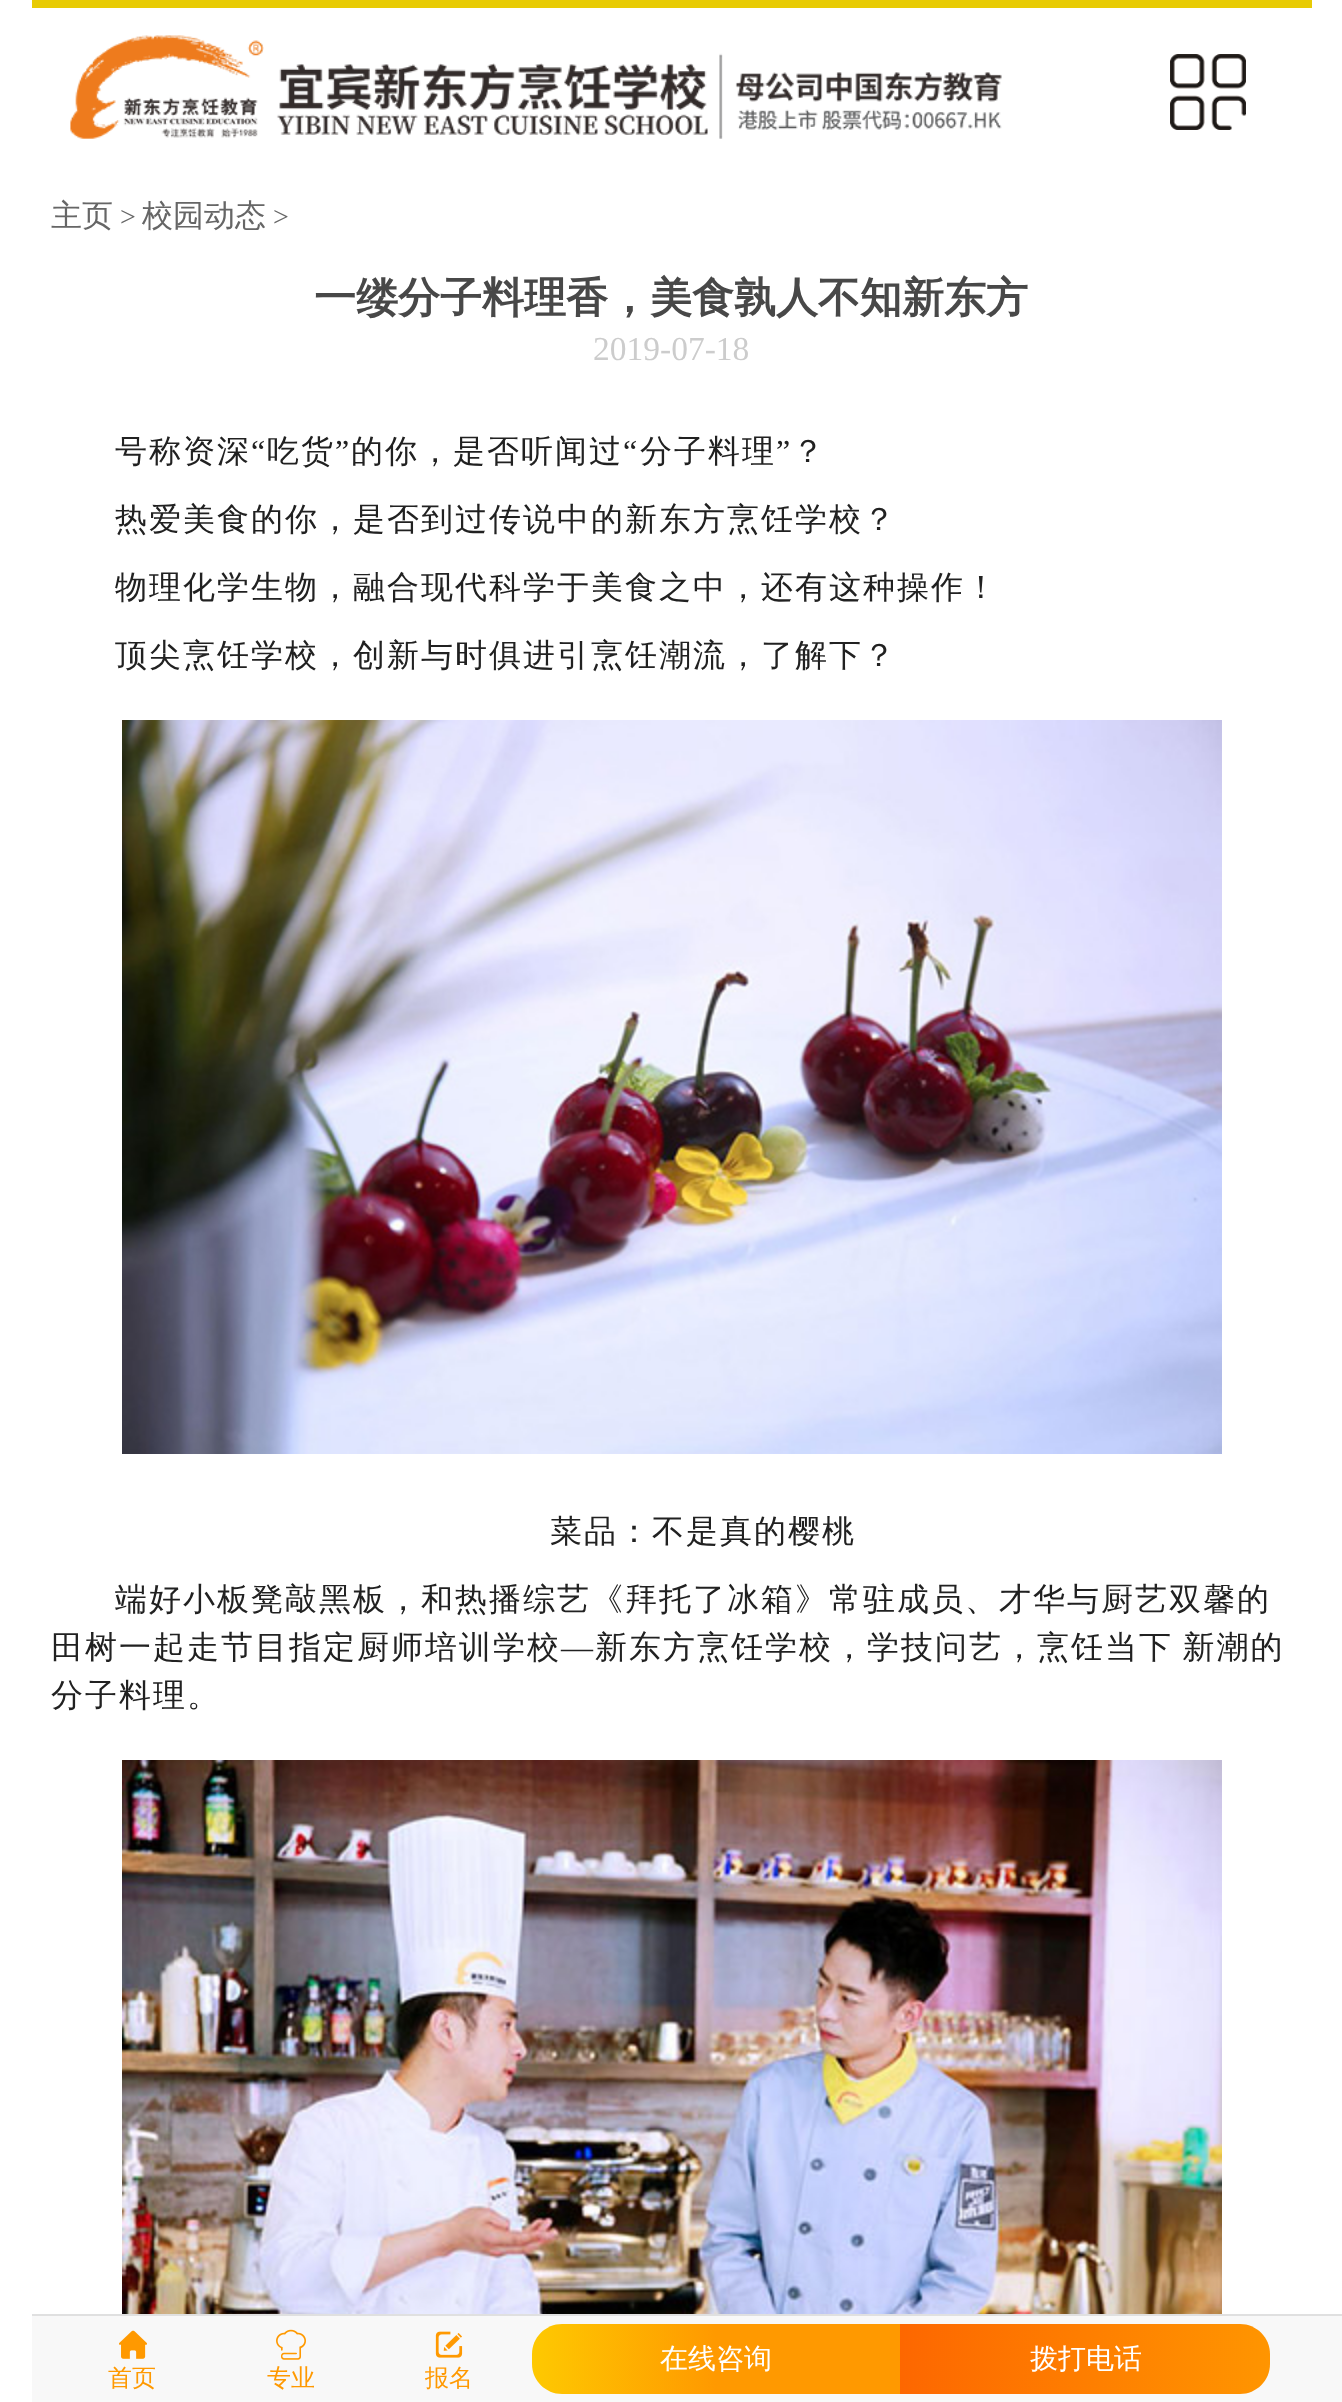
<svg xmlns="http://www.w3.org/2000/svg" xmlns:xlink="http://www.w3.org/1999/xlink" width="1342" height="2402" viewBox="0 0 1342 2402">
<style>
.cls-1{font:500 31px WenQuanYi Zen Hei;fill:#666666}
.cls-2{font:28px Liberation Serif;fill:#666666}
.cls-3{font:bold 42px WenQuanYi Zen Hei;fill:#484848}
.cls-4{font:33.5px Liberation Serif;fill:#cccccc}
.cls-5{font:500 32px WenQuanYi Zen Hei;letter-spacing:2px;fill:#212121}
.cls-6{font:32px Liberation Serif;letter-spacing:2px;fill:#212121}
.cls-7{font:500 28px WenQuanYi Zen Hei;fill:#ffffff}
.cls-8{font:500 24px WenQuanYi Zen Hei;fill:#ff9900}
</style>
<defs>
<linearGradient id="g1" gradientUnits="userSpaceOnUse" x1="532" y1="2359" x2="900" y2="2359"><stop offset="0" stop-color="#fec901"/><stop offset="0.5" stop-color="#ff9900"/><stop offset="1" stop-color="#ff9900"/></linearGradient>
<linearGradient id="g2" gradientUnits="userSpaceOnUse" x1="900" y1="2359" x2="1270" y2="2359"><stop offset="0" stop-color="#fd6700"/><stop offset="1" stop-color="#ff9500"/></linearGradient>
</defs>
<rect width="100%" height="100%" fill="#ffffff"/>
<rect fill="#e8cb04" x="32" y="0" width="1280" height="8"/>
<image xlink:href="image0.png" x="70" y="35" width="932" height="104"/>
<image xlink:href="image1.png" x="1170" y="54" width="76" height="76"/>
<image xlink:href="image2.png" x="122" y="720" width="1100" height="734"/>
<image xlink:href="image3.png" x="122" y="1760" width="1100" height="554"/>
<rect fill="#f8f8f8" x="32" y="2316" width="1310" height="86"/>
<rect fill="#e0e0e0" x="32" y="2314" width="1310" height="2"/>
<path fill="url(#g1)" d="M562 2324H900V2394H562C545.5 2394 532 2380.5 532 2364V2354C532 2337.5 545.5 2324 562 2324Z"/>
<path fill="url(#g2)" d="M900 2324H1240C1256.5 2324 1270 2337.5 1270 2354V2364C1270 2380.5 1256.5 2394 1240 2394H900Z"/>
<image xlink:href="image4.png" x="119" y="2330" width="28" height="29"/>
<image xlink:href="image5.png" x="276" y="2329" width="30" height="31"/>
<image xlink:href="image6.png" x="435" y="2331" width="28" height="27"/>
<text class="cls-1" x="51" y="226">主页</text>
<text class="cls-2" x="120" y="226">&gt;</text>
<text class="cls-1" x="142" y="226">校园动态</text>
<text class="cls-2" x="273" y="226">&gt;</text>
<text class="cls-3" x="314" y="312">一缕分子料理香，美食孰人不知新东方</text>
<text class="cls-4" x="593" y="360">2019-07-18</text>
<text class="cls-5" x="115" y="462">号称资深</text>
<text class="cls-6" x="251" y="462">“</text>
<text class="cls-5" x="267" y="462">吃货</text>
<text class="cls-6" x="335" y="462">”</text>
<text class="cls-5" x="351" y="462">的你，是否听闻过</text>
<text class="cls-6" x="623" y="462">“</text>
<text class="cls-5" x="640" y="462">分子料理</text>
<text class="cls-6" x="776" y="462">”</text>
<text class="cls-5" x="792" y="462">？</text>
<text class="cls-5" x="115" y="530">热爱美食的你，是否到过传说中的新东方烹饪学校？</text>
<text class="cls-5" x="115" y="598">物理化学生物，融合现代科学于美食之中，还有这种操作！</text>
<text class="cls-5" x="115" y="666">顶尖烹饪学校，创新与时俱进引烹饪潮流，了解下？</text>
<text class="cls-5" x="550" y="1542">菜品：不是真的樱桃</text>
<text class="cls-5" x="115" y="1610">端好小板凳敲黑板，和热播综艺《拜托了冰箱》常驻成员、才华与厨艺双馨的</text>
<text class="cls-5" x="51" y="1658">田树一起走节目指定厨师培训学校</text>
<text class="cls-6" x="561" y="1658">—</text>
<text class="cls-5" x="595" y="1658" word-spacing="-2">新东方烹饪学校，学技问艺，烹饪当下 新潮的</text>
<text class="cls-5" x="51" y="1706">分子料理。</text>
<text class="cls-7" x="660" y="2368">在线咨询</text>
<text class="cls-7" x="1030" y="2368">拨打电话</text>
<text class="cls-8" x="108" y="2386">首页</text>
<text class="cls-8" x="267" y="2386">专业</text>
<text class="cls-8" x="425" y="2386">报名</text>
</svg>
